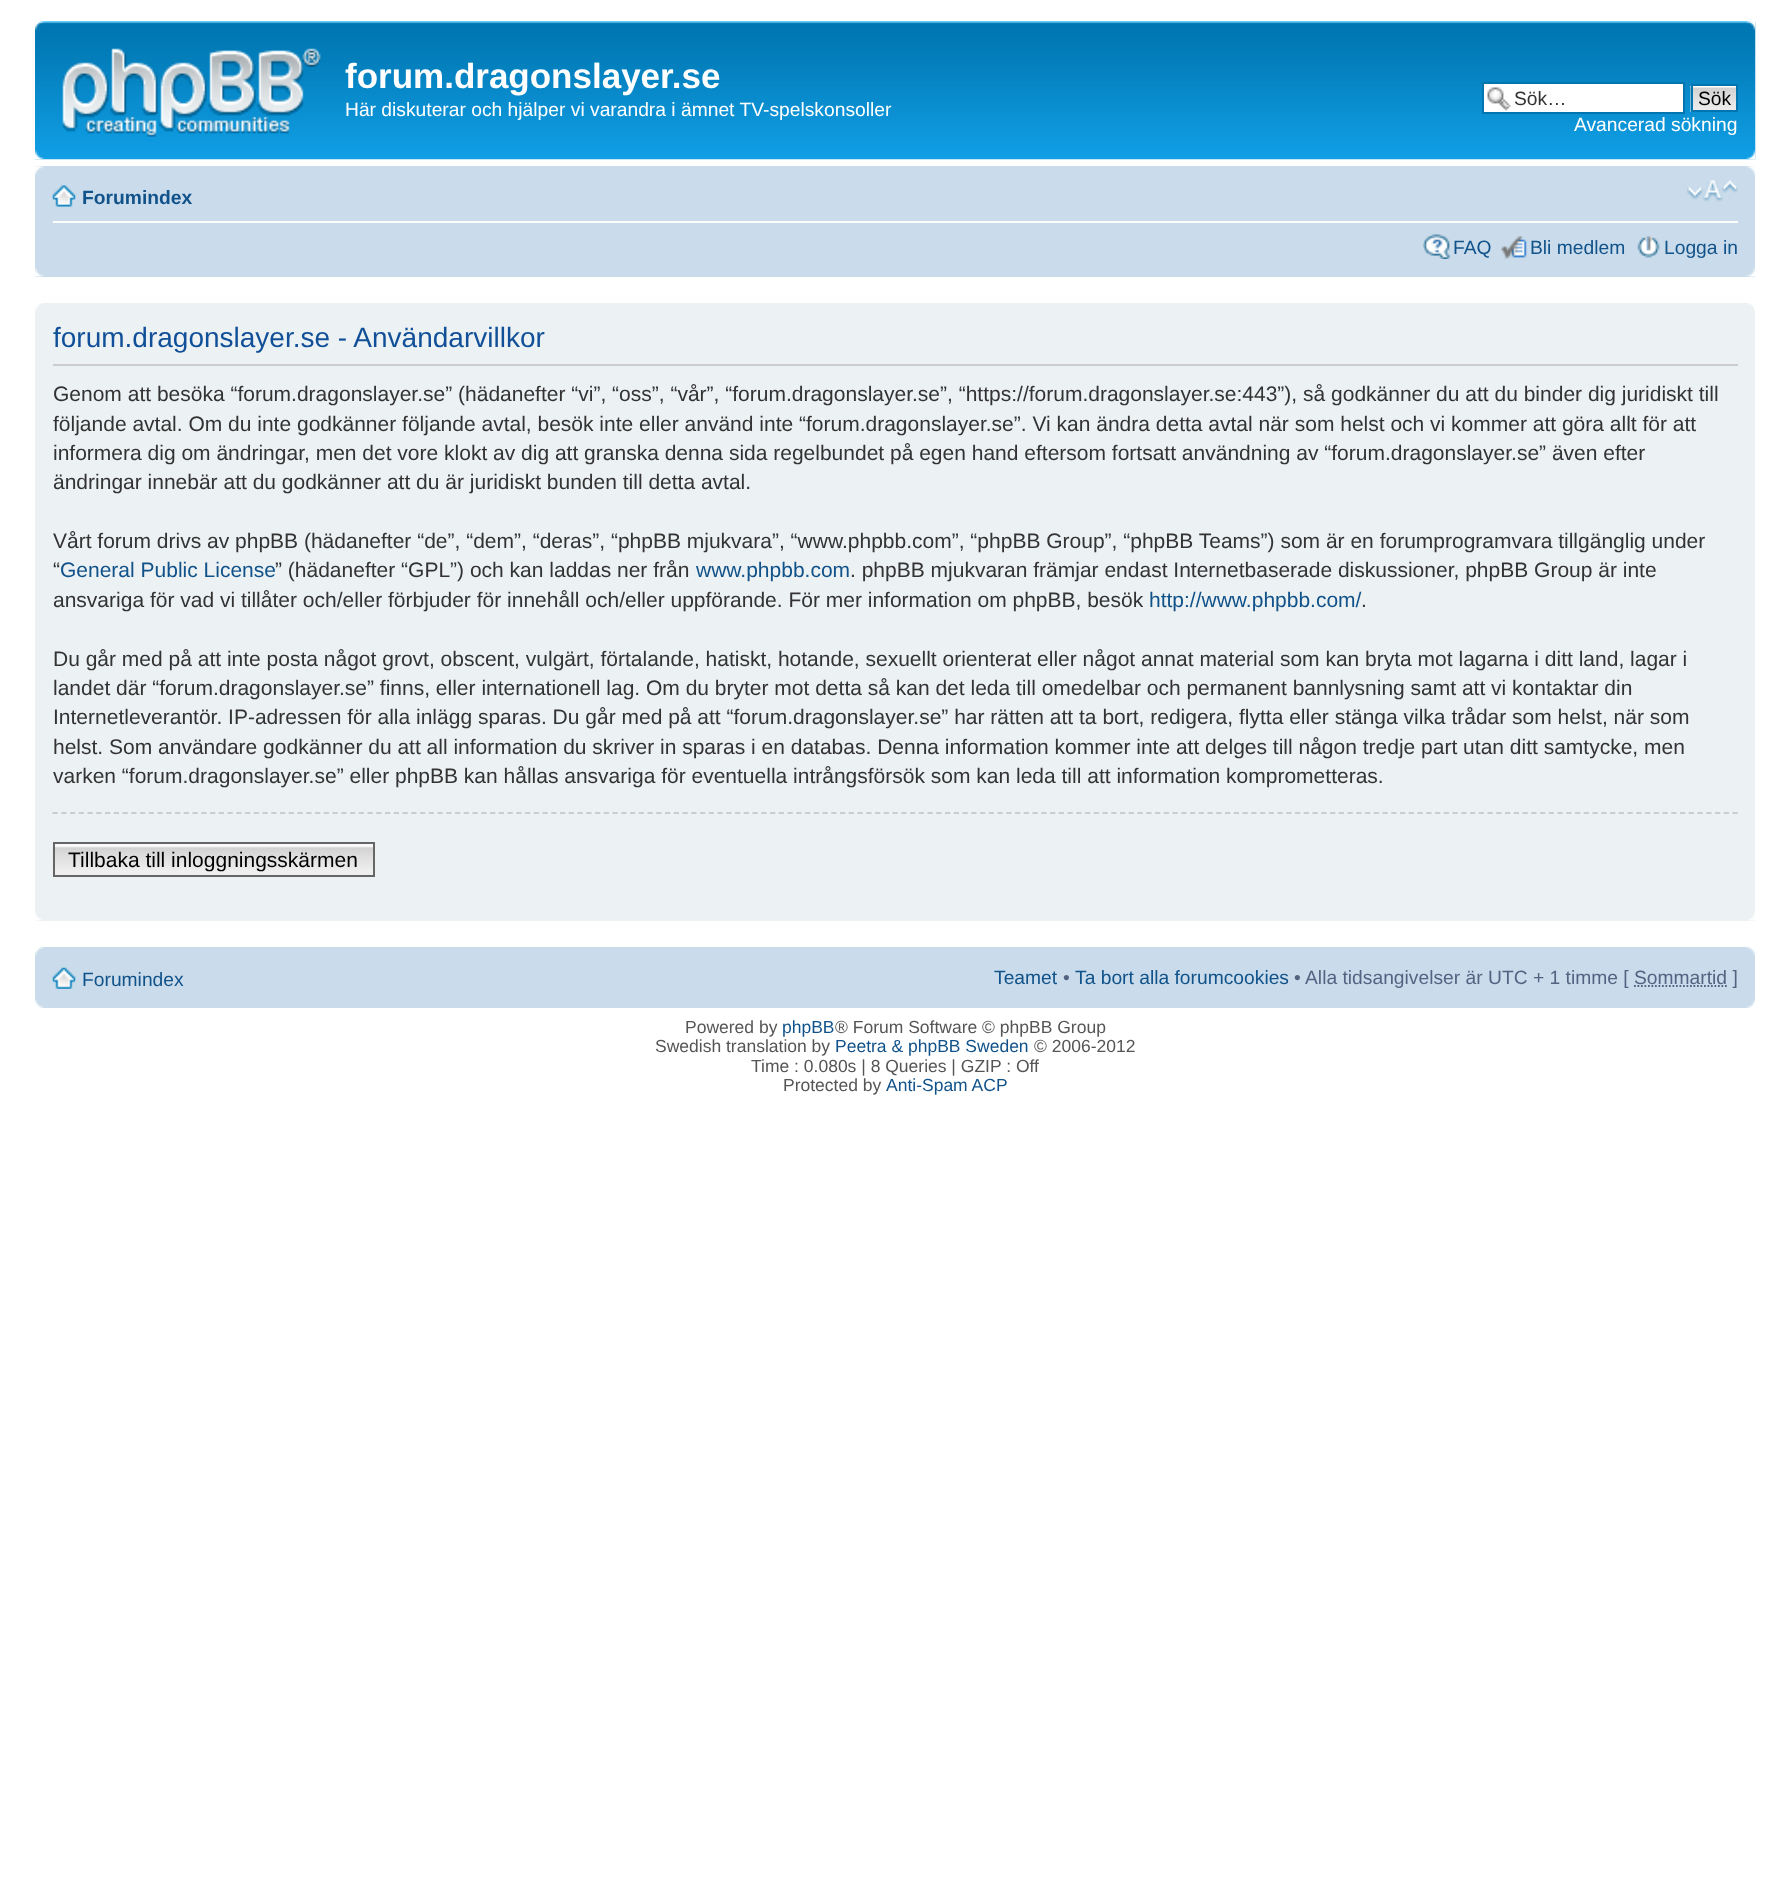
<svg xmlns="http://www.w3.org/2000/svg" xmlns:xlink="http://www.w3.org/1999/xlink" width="1789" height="1886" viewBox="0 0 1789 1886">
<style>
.cls-1{font:bold 35px Liberation Sans;fill:#ffffff}
.cls-2{font:19.25px Liberation Sans;fill:#ffffff}
.cls-3{font:19.25px Liberation Sans;fill:#333333}
.cls-4{font:19.25px Liberation Sans;fill:#000000}
.cls-5{font:bold 19.25px Liberation Sans;fill:#105289}
.cls-6{font:19.25px Liberation Sans;fill:#105289}
.cls-7{font:28px Liberation Sans;fill:#115098}
.cls-8{font:21px Liberation Sans;fill:#333333}
.cls-9{font:21px Liberation Sans;fill:#105289}
.cls-10{font:21px Liberation Sans;fill:#000000}
.cls-11{font:19.25px Liberation Sans;fill:#536482}
.cls-12{font:17.5px Liberation Sans;fill:#555555}
.cls-13{font:17.5px Liberation Sans;fill:#105289}
</style>
<rect width="100%" height="100%" fill="#ffffff"/>
<image xlink:href="image0.png" x="35" y="21" width="1721" height="139"/>
<image xlink:href="image1.png" x="35" y="21" width="10" height="9"/>
<image xlink:href="image2.png" x="1746" y="21" width="10" height="9"/>
<image xlink:href="image3.png" x="62" y="48" width="259" height="89"/>
<rect fill="#ffffff" x="1484" y="84" width="199" height="28"/>
<image xlink:href="image4.png" x="1487" y="87" width="24" height="24"/>
<rect fill="none" stroke="#0075b0" stroke-width="2" x="1483" y="83" width="201" height="30"/>
<image xlink:href="image5.png" x="1690" y="85" width="46" height="27"/>
<rect fill="none" stroke="#0075b0" stroke-width="2" x="1692" y="85" width="45" height="26"/>
<image xlink:href="image6.png" x="35" y="150" width="10" height="10"/>
<image xlink:href="image7.png" x="1746" y="150" width="10" height="10"/>
<rect fill="#cadceb" x="35" y="166" width="1720" height="111"/>
<image xlink:href="image8.png" x="35" y="166" width="9" height="9"/>
<image xlink:href="image9.png" x="1746" y="166" width="9" height="9"/>
<rect fill="#ffffff" x="53" y="221" width="1685" height="2"/>
<image xlink:href="image10.png" x="52" y="185" width="24" height="22"/>
<image xlink:href="image11.png" x="1687" y="180" width="51" height="22"/>
<image xlink:href="image12.png" x="1423" y="234" width="28" height="25"/>
<image xlink:href="image13.png" x="1501" y="235" width="26" height="24"/>
<image xlink:href="image14.png" x="1637" y="236" width="23" height="22"/>
<image xlink:href="image15.png" x="35" y="268" width="9" height="9"/>
<image xlink:href="image16.png" x="1746" y="268" width="9" height="9"/>
<rect fill="#ecf1f3" x="35" y="303" width="1720" height="618"/>
<image xlink:href="image17.png" x="35" y="303" width="8" height="8"/>
<image xlink:href="image18.png" x="1747" y="303" width="8" height="8"/>
<rect fill="#cccccc" x="53" y="364" width="1685" height="2"/>
<path fill="none" stroke="#cccccc" stroke-width="1.8" stroke-dasharray="5.25 3.5" d="M52.5 813H1738"/>
<image xlink:href="image19.png" x="52" y="846" width="321" height="31"/>
<rect fill="#fafafa" x="55" y="844" width="318" height="2"/>
<rect fill="none" stroke="#666666" stroke-width="2" x="54" y="843" width="320" height="33"/>
<image xlink:href="image20.png" x="35" y="912" width="8" height="9"/>
<image xlink:href="image21.png" x="1747" y="912" width="8" height="9"/>
<rect fill="#cadceb" x="35" y="947" width="1720" height="61"/>
<image xlink:href="image22.png" x="35" y="947" width="9" height="9"/>
<image xlink:href="image23.png" x="1746" y="947" width="9" height="9"/>
<image xlink:href="image24.png" x="52" y="967" width="24" height="22"/>
<path fill="none" stroke="#536482" stroke-width="1.8" stroke-dasharray="1.75 1.75" d="M1634 986H1727"/>
<image xlink:href="image25.png" x="35" y="999" width="9" height="9"/>
<image xlink:href="image26.png" x="1746" y="999" width="9" height="9"/>
<text class="cls-1" x="345" y="88">forum.dragonslayer.se</text>
<text class="cls-2" x="345" y="116">Här diskuterar och hjälper vi varandra i ämnet TV-spelskonsoller</text>
<text class="cls-3" x="1514" y="105">Sök…</text>
<text class="cls-4" x="1698" y="105">Sök</text>
<text class="cls-2" x="1574" y="131">Avancerad sökning</text>
<text class="cls-5" x="82" y="204">Forumindex</text>
<text class="cls-6" x="1453" y="254">FAQ</text>
<text class="cls-6" x="1530" y="254">Bli medlem</text>
<text class="cls-6" x="1664" y="254">Logga in</text>
<text class="cls-7" x="53" y="347">forum.dragonslayer.se - Användarvillkor</text>
<text class="cls-8"><tspan x="53" y="401">Genom att besöka “forum.dragonslayer.se” (hädanefter “vi”, “oss”, “vår”, “forum.dragonslayer.se”, “https://forum.dragonslayer.se:443”), så godkänner du att du binder dig juridiskt till</tspan><tspan x="53" y="431">följande avtal. Om du inte godkänner följande avtal, besök inte eller använd inte “forum.dragonslayer.se”. Vi kan ändra detta avtal när som helst och vi kommer att göra allt för att</tspan><tspan x="53" y="460">informera dig om ändringar, men det vore klokt av dig att granska denna sida regelbundet på egen hand eftersom fortsatt användning av “forum.dragonslayer.se” även efter</tspan><tspan x="53" y="489">ändringar innebär att du godkänner att du är juridiskt bunden till detta avtal.</tspan></text>
<text class="cls-8"><tspan x="53" y="548">Vårt forum drivs av phpBB (hädanefter “de”, “dem”, “deras”, “phpBB mjukvara”, “www.phpbb.com”, “phpBB Group”, “phpBB Teams”) som är en forumprogramvara tillgänglig under</tspan><tspan x="53" y="577">“</tspan></text>
<text class="cls-9" x="60" y="577">General Public License</text>
<text class="cls-8" x="275" y="577">” (hädanefter “GPL”) och kan laddas ner från</text>
<text class="cls-9" x="696" y="577">www.phpbb.com</text>
<text class="cls-8" x="850" y="577">. phpBB mjukvaran främjar endast Internetbaserade diskussioner, phpBB Group är inte</text>
<text class="cls-8" x="53" y="607">ansvariga för vad vi tillåter och/eller förbjuder för innehåll och/eller uppförande. För mer information om phpBB, besök</text>
<text class="cls-9" x="1149" y="607">http://www.phpbb.com/</text>
<text class="cls-8" x="1361" y="607">.</text>
<text class="cls-8"><tspan x="53" y="666">Du går med på att inte posta något grovt, obscent, vulgärt, förtalande, hatiskt, hotande, sexuellt orienterat eller något annat material som kan bryta mot lagarna i ditt land, lagar i</tspan><tspan x="53" y="695">landet där “forum.dragonslayer.se” finns, eller internationell lag. Om du bryter mot detta så kan det leda till omedelbar och permanent bannlysning samt att vi kontaktar din</tspan><tspan x="53" y="724">Internetleverantör. IP-adressen för alla inlägg sparas. Du går med på att “forum.dragonslayer.se” har rätten att ta bort, redigera, flytta eller stänga vilka trådar som helst, när som</tspan><tspan x="53" y="754">helst. Som användare godkänner du att all information du skriver in sparas i en databas. Denna information kommer inte att delges till någon tredje part utan ditt samtycke, men</tspan><tspan x="53" y="783">varken “forum.dragonslayer.se” eller phpBB kan hållas ansvariga för eventuella intrångsförsök som kan leda till att information komprometteras.</tspan></text>
<text class="cls-10" x="68" y="867">Tillbaka till inloggningsskärmen</text>
<text class="cls-6" x="82" y="986">Forumindex</text>
<text class="cls-6" x="994" y="984">Teamet</text>
<text class="cls-11" x="1063" y="984">•</text>
<text class="cls-6" x="1075" y="984">Ta bort alla forumcookies</text>
<text class="cls-11" x="1294" y="984">• Alla tidsangivelser är UTC + 1 timme [ Sommartid ]</text>
<text class="cls-12" x="685" y="1033">Powered by</text>
<text class="cls-13" x="782" y="1033">phpBB</text>
<text class="cls-12" x="835" y="1033">® Forum Software © phpBB Group</text>
<text class="cls-12" x="655" y="1052">Swedish translation by</text>
<text class="cls-13" x="835" y="1052">Peetra &amp; phpBB Sweden</text>
<text class="cls-12" x="1034" y="1052">© 2006-2012</text>
<text class="cls-12" x="751" y="1072">Time : 0.080s | 8 Queries | GZIP : Off</text>
<text class="cls-12" x="783" y="1091">Protected by</text>
<text class="cls-13" x="886" y="1091">Anti-Spam ACP</text>
</svg>
